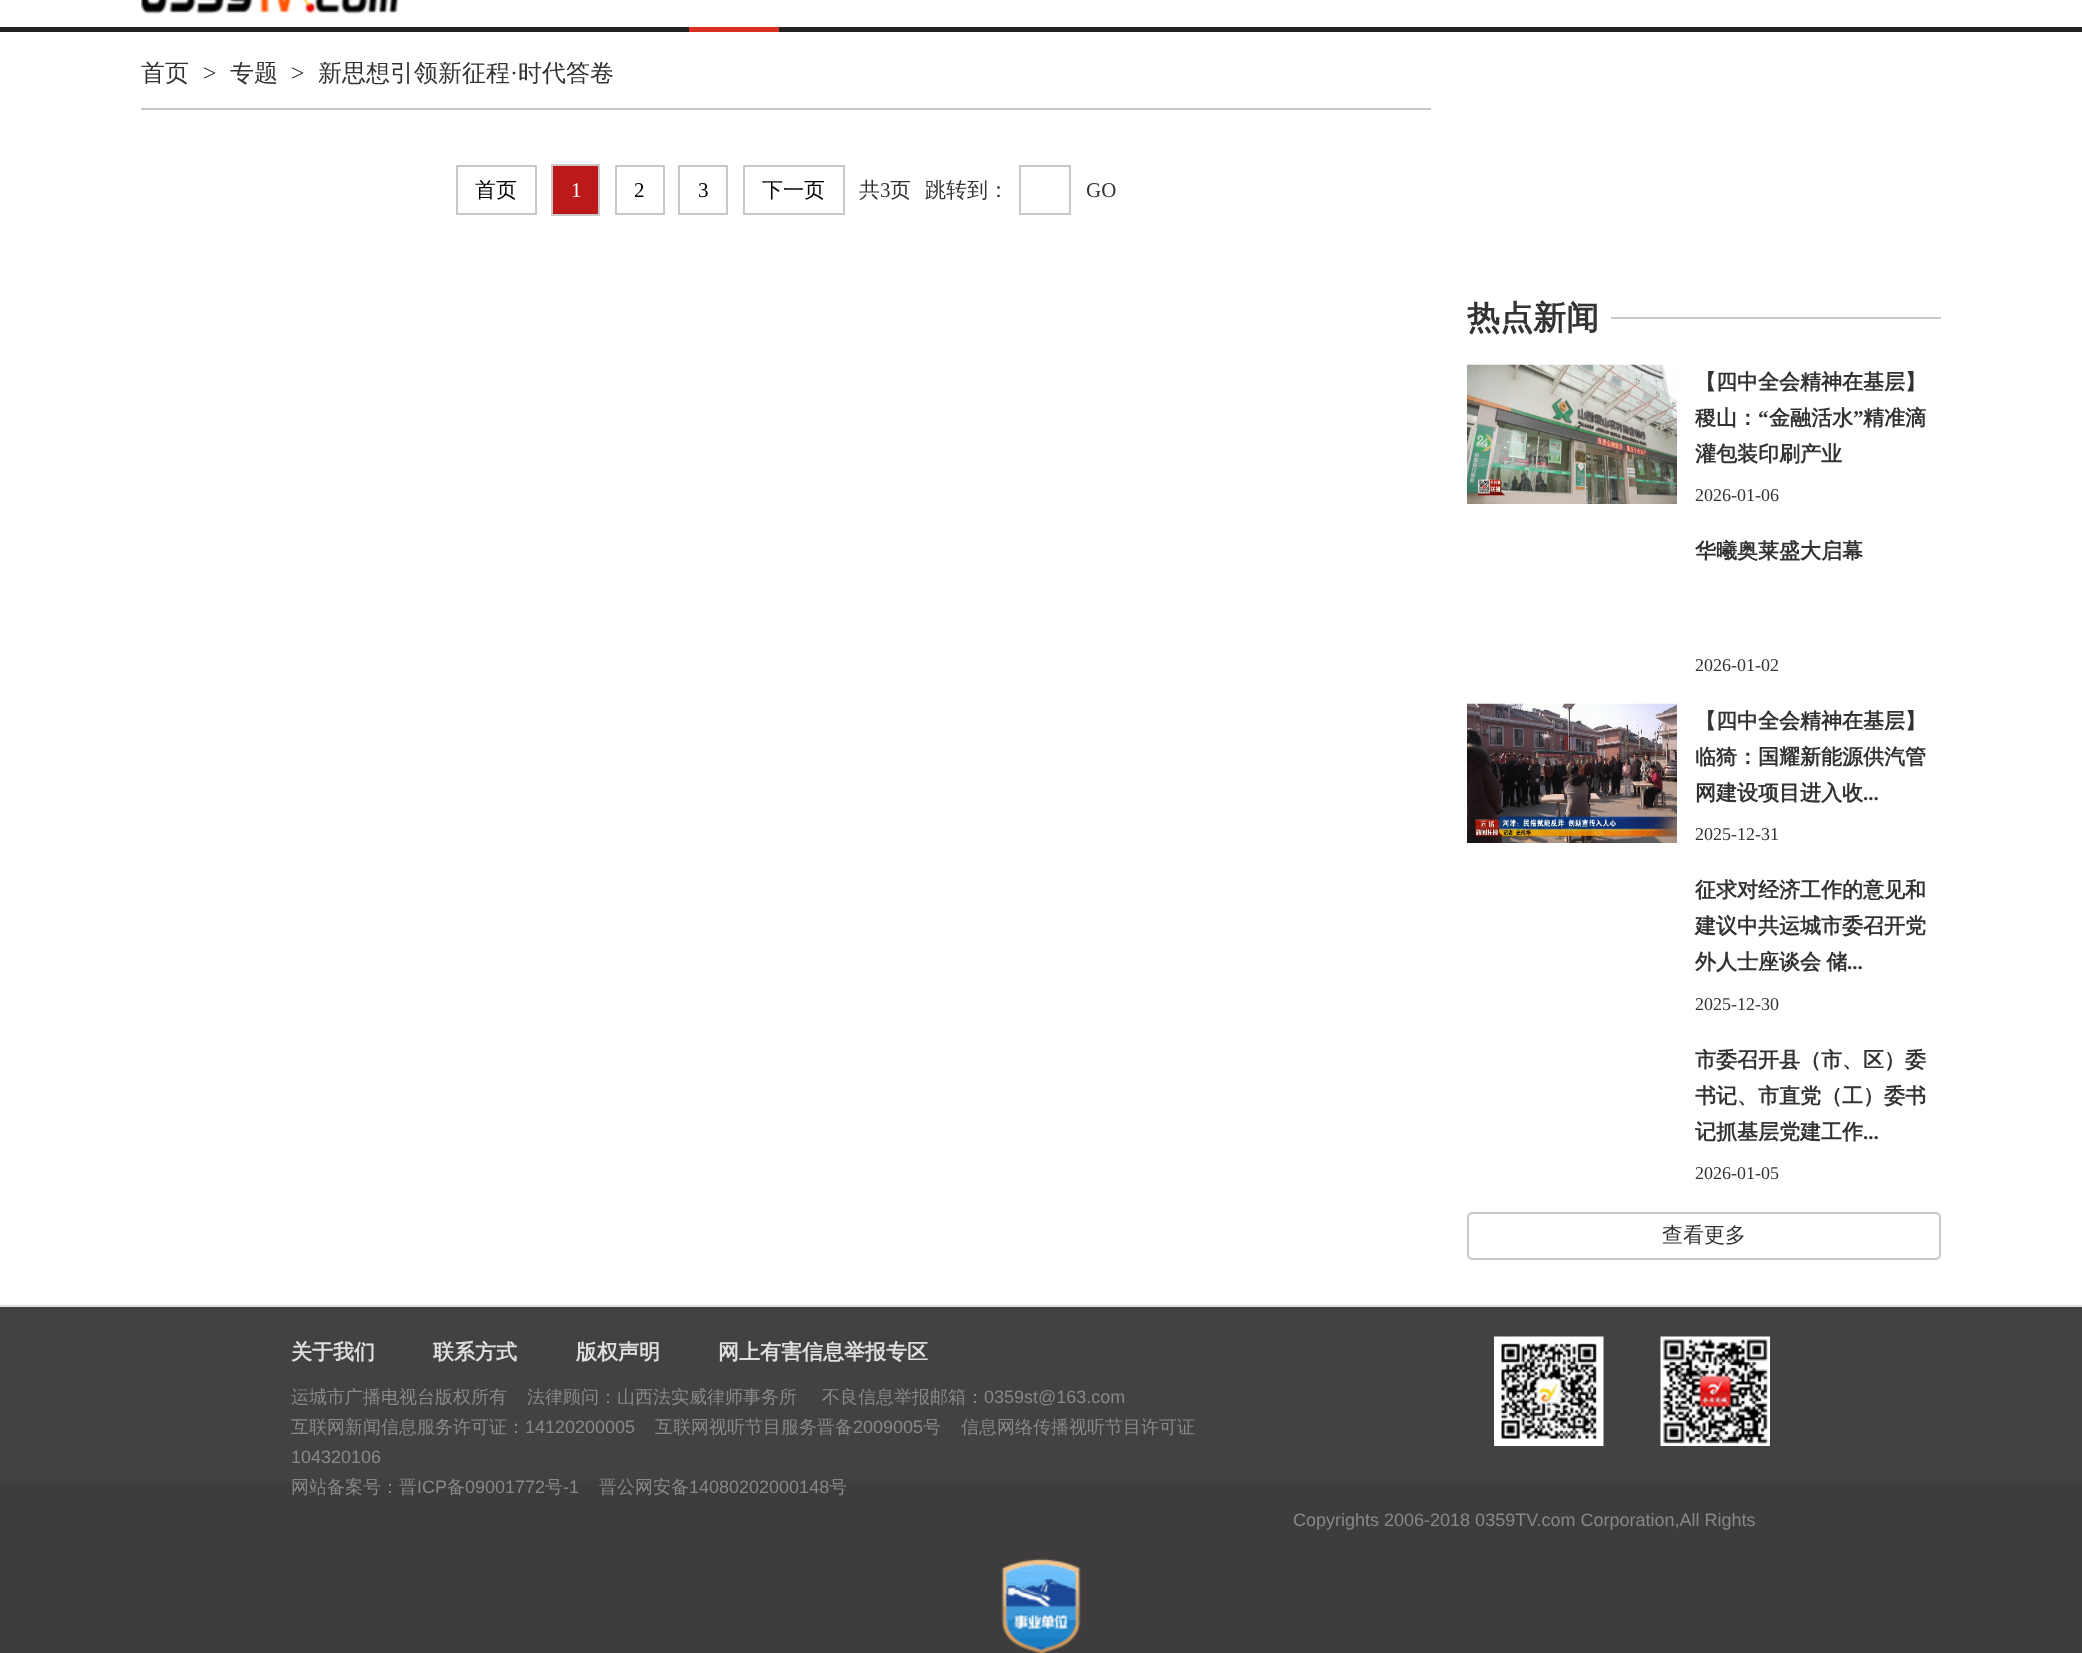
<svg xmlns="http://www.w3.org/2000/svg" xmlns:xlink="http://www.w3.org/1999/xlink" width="2082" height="1653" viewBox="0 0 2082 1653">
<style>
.cls-1{font:500 24px WenQuanYi Zen Hei;fill:#333333}
.cls-2{font:24px Liberation Serif;fill:#333333}
.cls-3{font:500 21px WenQuanYi Zen Hei;fill:#000000}
.cls-4{font:21px Liberation Serif;fill:#ffffff}
.cls-5{font:21px Liberation Serif;fill:#000000}
.cls-6{font:500 21px WenQuanYi Zen Hei;fill:#333333}
.cls-7{font:21px Liberation Serif;fill:#333333}
.cls-8{font:bold 33px WenQuanYi Zen Hei;fill:#333333}
.cls-9{font:bold 21px WenQuanYi Zen Hei;fill:#333333}
.cls-10{font:bold 21px Liberation Serif;fill:#333333}
.cls-11{font:18px Liberation Serif;fill:#333333}
.cls-12{font:bold 21px WenQuanYi Zen Hei;fill:#dfdede}
.cls-13{font:500 18px WenQuanYi Zen Hei;fill:#888888}
.cls-14{font:18px Liberation Sans;fill:#888888}
</style>
<defs>
<clipPath id="clip1"><rect x="141" y="62" width="1800" height="1198"/></clipPath>
</defs>
<rect width="100%" height="100%" fill="#ffffff"/>
<rect fill="#232323" x="0" y="27" width="2082" height="5"/>
<image xlink:href="image0.png" x="141" y="0" width="257" height="14"/>
<rect fill="#d93024" x="689" y="27" width="90" height="5"/>
<rect fill="#c8c8c8" x="141" y="108" width="1290" height="2"/>
<rect fill="none" stroke="#c8c8c8" stroke-width="2" x="457" y="166" width="79" height="48"/>
<rect fill="#bc191a" stroke="#c8c8c8" stroke-width="2" x="552" y="165" width="47" height="50"/>
<rect fill="none" stroke="#c8c8c8" stroke-width="2" x="616" y="166" width="48" height="48"/>
<rect fill="none" stroke="#c8c8c8" stroke-width="2" x="679" y="166" width="48" height="48"/>
<rect fill="none" stroke="#c8c8c8" stroke-width="2" x="744" y="166" width="100" height="48"/>
<rect fill="none" stroke="#c8c8c8" stroke-width="2" x="1020" y="166" width="50" height="48"/>
<rect fill="#c8c8c8" x="1611" y="317" width="330" height="2"/>
<image xlink:href="image1.png" x="1467" y="364" width="210" height="140"/>
<image xlink:href="image2.png" x="1467" y="703" width="210" height="140"/>
<rect fill="none" stroke="#c8c8c8" stroke-width="2" x="1468" y="1213" width="472" height="46" rx="4"/>
<rect fill="#dfdfdf" x="0" y="1305" width="2082" height="2"/>
<rect fill="#434242" x="0" y="1307" width="2082" height="172"/>
<image xlink:href="image3.png" x="1494" y="1336" width="110" height="110"/>
<image xlink:href="image4.png" x="1660" y="1336" width="110" height="110"/>
<rect fill="#3e3c3c" x="0" y="1482" width="2082" height="171"/>
<rect fill="#414141" x="0" y="1479" width="2082" height="3"/>
<image xlink:href="image5.png" x="1001" y="1558" width="80" height="95"/>
<text class="cls-1" x="141" y="81">首页</text>
<text class="cls-2" x="203" y="81">&gt;</text>
<g clip-path="url(#clip1)">
<text class="cls-1" x="230" y="81">专题</text>
</g>
<text class="cls-2" x="291" y="81">&gt;</text>
<g clip-path="url(#clip1)">
<text class="cls-1" x="318" y="81">新思想引领新征程</text>
</g>
<text class="cls-2" x="510" y="81">·</text>
<g clip-path="url(#clip1)">
<text class="cls-1" x="518" y="81">时代答卷</text>
</g>
<text class="cls-3" x="475" y="197">首页</text>
<text class="cls-4" x="571" y="197">1</text>
<text class="cls-5" x="634" y="197">2</text>
<text class="cls-5" x="698" y="197">3</text>
<text class="cls-3" x="762" y="197">下一页</text>
<text class="cls-6" x="859" y="197">共</text>
<text class="cls-7" x="880" y="197">3</text>
<text class="cls-6" x="890" y="197">页</text>
<text class="cls-6" x="925" y="197">跳转到：</text>
<text class="cls-7" x="1086" y="197">GO</text>
<text class="cls-8" x="1467" y="329">热点新闻</text>
<text class="cls-9"><tspan x="1695" y="389">【四中全会精神在基层】</tspan><tspan x="1695" y="425">稷山：</tspan></text>
<text class="cls-10" x="1758" y="425">“</text>
<text class="cls-9" x="1769" y="425">金融活水</text>
<text class="cls-10" x="1853" y="425">”</text>
<text class="cls-9" x="1863" y="425">精准滴</text>
<text class="cls-9" x="1695" y="461">灌包装印刷产业</text>
<text class="cls-11" x="1695" y="501">2026-01-06</text>
<text class="cls-9" x="1695" y="558">华曦奥莱盛大启幕</text>
<text class="cls-11" x="1695" y="671">2026-01-02</text>
<text class="cls-9"><tspan x="1695" y="728">【四中全会精神在基层】</tspan><tspan x="1695" y="764">临猗：国耀新能源供汽管</tspan><tspan x="1695" y="800">网建设项目进入收</tspan></text>
<text class="cls-10" x="1863" y="800">...</text>
<text class="cls-11" x="1695" y="840">2025-12-31</text>
<text class="cls-9"><tspan x="1695" y="897">征求对经济工作的意见和</tspan><tspan x="1695" y="933">建议中共运城市委召开党</tspan><tspan x="1695" y="969" word-spacing="-1">外人士座谈会 储</tspan></text>
<text class="cls-10" x="1847" y="969">...</text>
<text class="cls-11" x="1695" y="1010">2025-12-30</text>
<text class="cls-9"><tspan x="1695" y="1067">市委召开县（市、区）委</tspan><tspan x="1695" y="1103">书记、市直党（工）委书</tspan><tspan x="1695" y="1139">记抓基层党建工作</tspan></text>
<text class="cls-10" x="1863" y="1139">...</text>
<text class="cls-11" x="1695" y="1179">2026-01-05</text>
<text class="cls-6" x="1662" y="1242">查看更多</text>
<text class="cls-12" x="291" y="1359">关于我们</text>
<text class="cls-12" x="433" y="1359">联系方式</text>
<text class="cls-12" x="576" y="1359">版权声明</text>
<text class="cls-12" x="718" y="1359">网上有害信息举报专区</text>
<text class="cls-13" x="291" y="1403">运城市广播电视台版权所有</text>
<text class="cls-13" x="527" y="1403">法律顾问：山西法实威律师事务所</text>
<text class="cls-13" x="822" y="1403">不良信息举报邮箱：</text>
<text class="cls-14" x="984" y="1403">0359st@163.com</text>
<text class="cls-13" x="291" y="1433">互联网新闻信息服务许可证：</text>
<text class="cls-14" x="525" y="1433">14120200005</text>
<text class="cls-13" x="655" y="1433">互联网视听节目服务晋备</text>
<text class="cls-14" x="853" y="1433">2009005</text>
<text class="cls-13" x="923" y="1433">号</text>
<text class="cls-13" x="961" y="1433">信息网络传播视听节目许可证</text>
<text class="cls-14" x="291" y="1463">104320106</text>
<text class="cls-13" x="291" y="1493">网站备案号：晋</text>
<text class="cls-14" x="417" y="1493">ICP</text>
<text class="cls-13" x="447" y="1493">备</text>
<text class="cls-14" x="465" y="1493">09001772</text>
<text class="cls-13" x="545" y="1493">号</text>
<text class="cls-14" x="563" y="1493">-1</text>
<text class="cls-13" x="599" y="1493">晋公网安备</text>
<text class="cls-14" x="689" y="1493">14080202000148</text>
<text class="cls-13" x="829" y="1493">号</text>
<text class="cls-14" x="1293" y="1526">Copyrights 2006-2018 0359TV.com Corporation,All Rights</text>
</svg>
